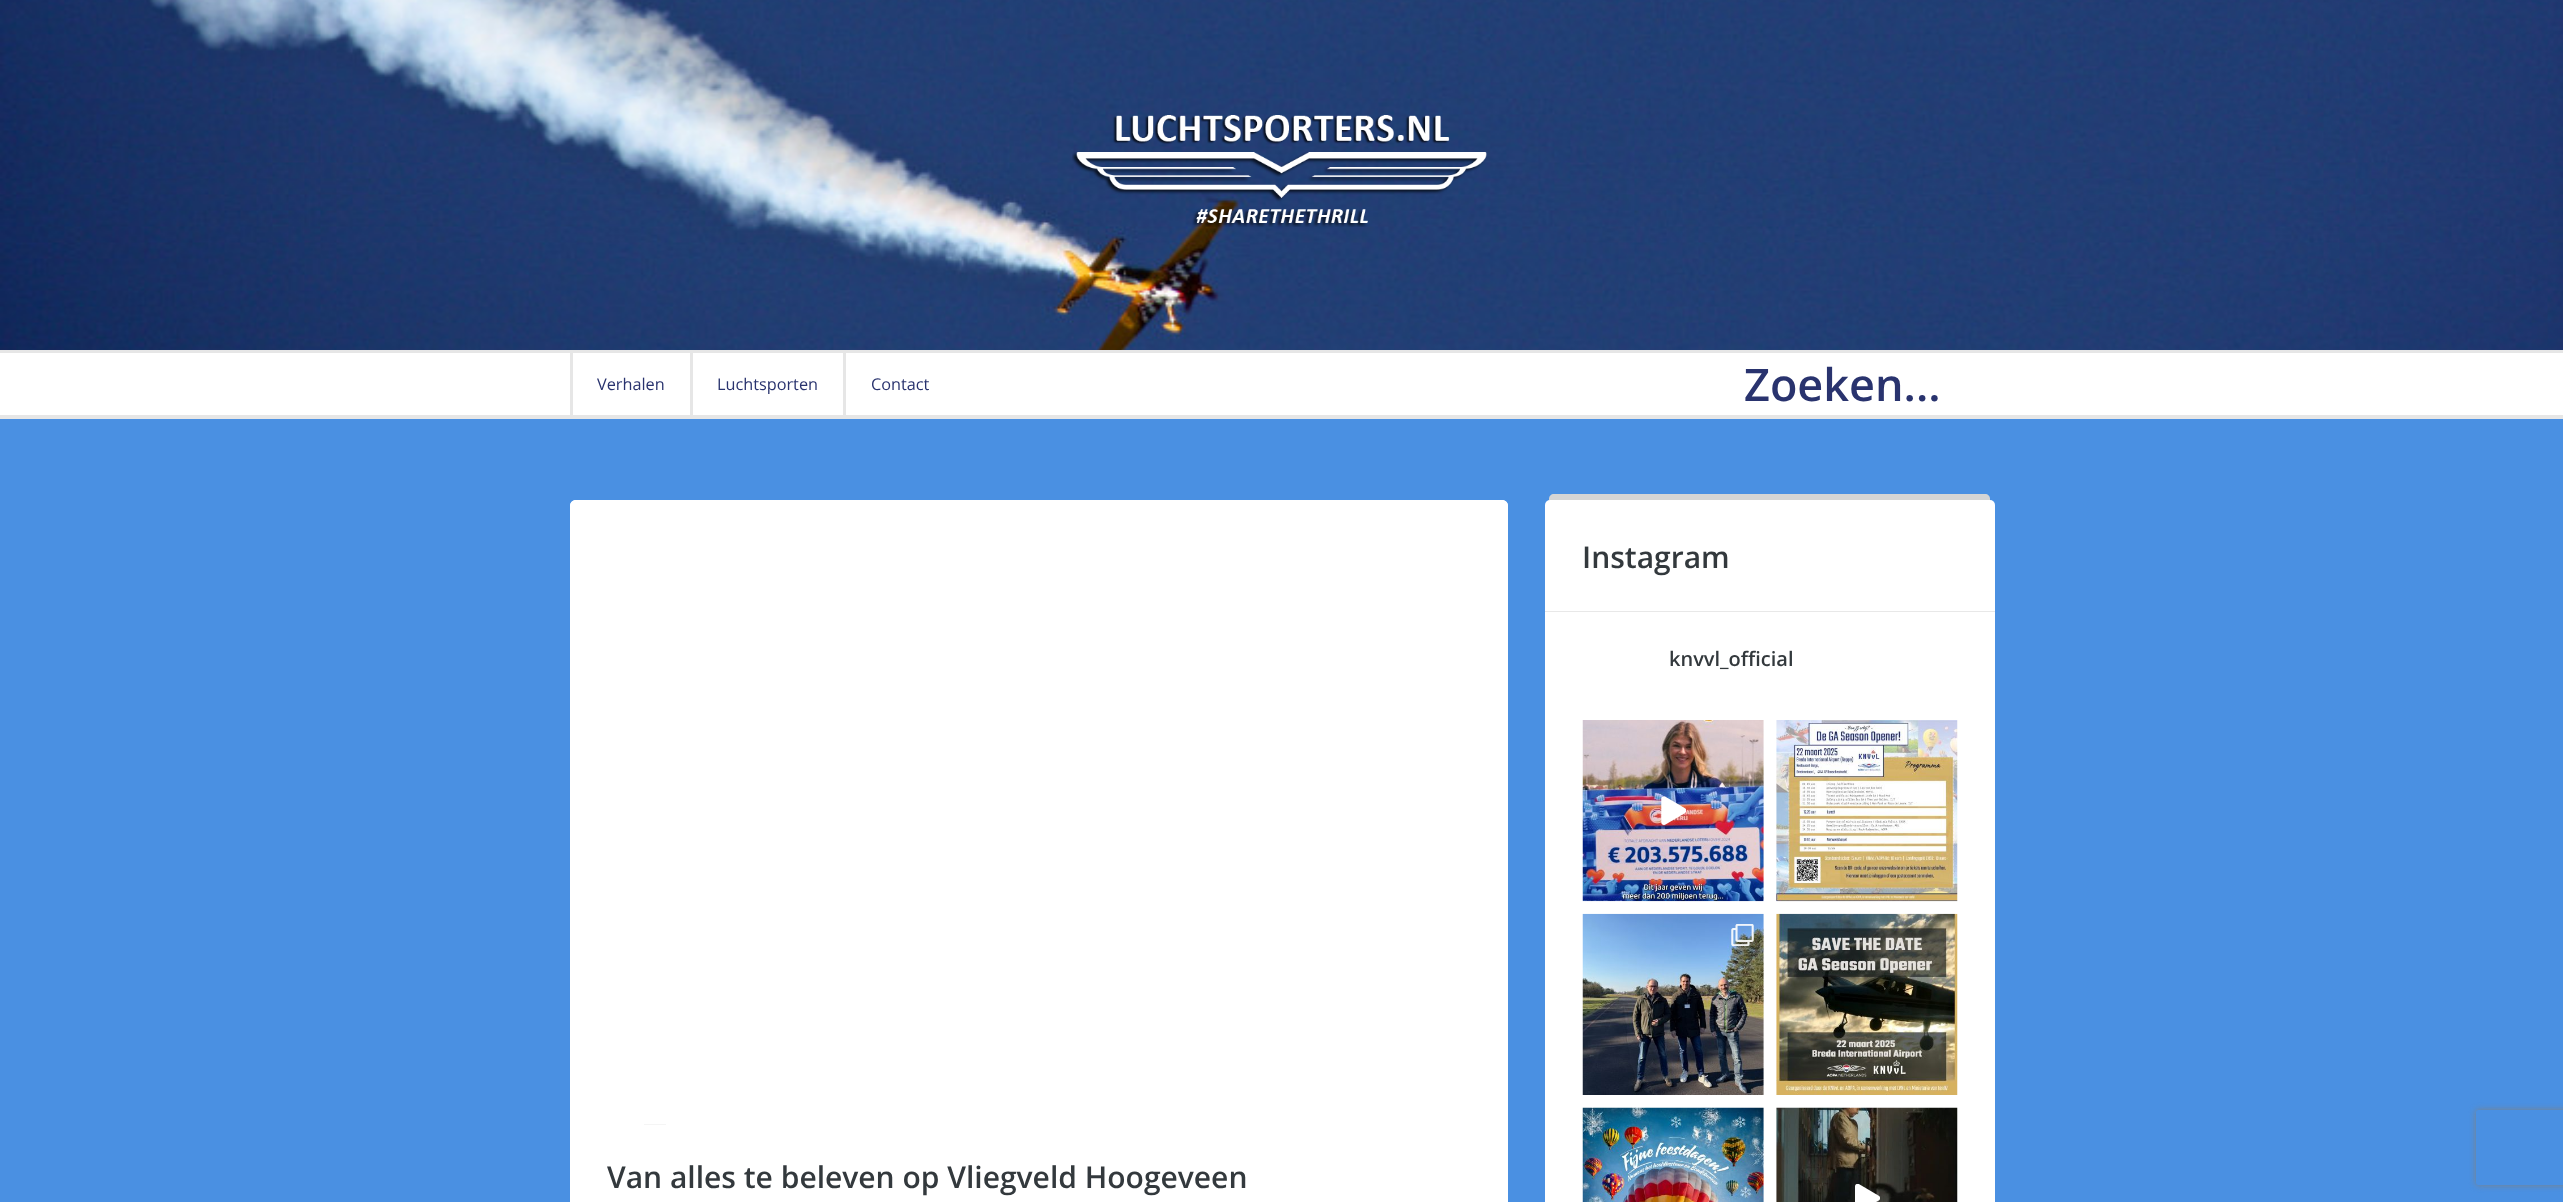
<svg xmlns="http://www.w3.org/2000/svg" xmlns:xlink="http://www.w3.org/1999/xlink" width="2563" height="1202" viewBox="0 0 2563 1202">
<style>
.cls-1{font:16.25px Open Sans;fill:#29336e}
.cls-2{font:600 45px Open Sans;fill:#29336e}
.cls-3{font:600 30px Open Sans;fill:#33393d}
.cls-4{font:600 20px Open Sans;fill:#33393d}
</style>
<defs>
<clipPath id="clip1"><path d="M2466 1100H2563V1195H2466ZM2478.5 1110H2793.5C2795 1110 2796 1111 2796 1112.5V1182.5C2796 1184 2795 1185 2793.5 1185H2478.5C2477 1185 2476 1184 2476 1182.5V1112.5C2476 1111 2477 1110 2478.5 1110Z" clip-rule="evenodd"/></clipPath>
</defs>
<rect width="100%" height="100%" fill="#4a90e2"/>
<image xlink:href="image0.png" x="0" y="0" width="2563" height="350"/>
<image xlink:href="image1.png" x="1072" y="115" width="415" height="112"/>
<rect fill="#ffffff" x="0" y="353" width="2563" height="62"/>
<rect fill="#e6e6e6" x="0" y="350" width="2563" height="3"/>
<rect fill="#e6e6e6" x="0" y="415" width="2563" height="4"/>
<rect fill="#e6e6e6" x="570" y="353" width="3" height="62"/>
<rect fill="#e6e6e6" x="690" y="353" width="3" height="62"/>
<rect fill="#e6e6e6" x="843" y="353" width="3" height="62"/>
<rect fill="#ffffff" x="1545" y="500" width="450" height="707" rx="5"/>
<path fill="#d5d5d5" d="M1554 494H1985C1988 494 1990 496 1990 499V500H1549V499C1549 496 1551 494 1554 494Z"/>
<rect fill="#e8e8e8" x="1545" y="611" width="450" height="1"/>
<image xlink:href="image2.png" x="1582" y="720" width="182" height="182"/>
<image xlink:href="image3.png" x="1661" y="796" width="25" height="29"/>
<image xlink:href="image4.png" x="1776" y="720" width="182" height="182"/>
<image xlink:href="image5.png" x="1582" y="913" width="182" height="182"/>
<image xlink:href="image6.png" x="1731" y="924" width="23" height="22"/>
<image xlink:href="image7.png" x="1776" y="913" width="182" height="182"/>
<image xlink:href="image8.png" x="1582" y="1107" width="182" height="95"/>
<image xlink:href="image9.png" x="1776" y="1107" width="182" height="95"/>
<image xlink:href="image10.png" x="1855" y="1184" width="25" height="18"/>
<rect fill="#ffffff" x="570" y="500" width="938" height="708" rx="6"/>
<path fill="#ffffff" d="M576 500H1502C1505.5 500 1508 502.5 1508 506V1125H570V506C570 502.5 572.5 500 576 500Z"/>
<rect fill="#f5f5f5" x="644" y="1124" width="22" height="1"/>
<g clip-path="url(#clip1)">
<rect fill="#808080" filter="blur(3px)" x="2476" y="1110" width="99" height="75" rx="2.5"/>
</g>
<text class="cls-1" x="597" y="390">Verhalen</text>
<text class="cls-1" x="717" y="390">Luchtsporten</text>
<text class="cls-1" x="871" y="390">Contact</text>
<text class="cls-2" x="1744" y="401">Zoeken...</text>
<text class="cls-3" x="1582" y="568">Instagram</text>
<text class="cls-4" x="1669" y="666">knvvl_official</text>
<text class="cls-3" x="607" y="1188">Van alles te beleven op Vliegveld Hoogeveen</text>
</svg>
